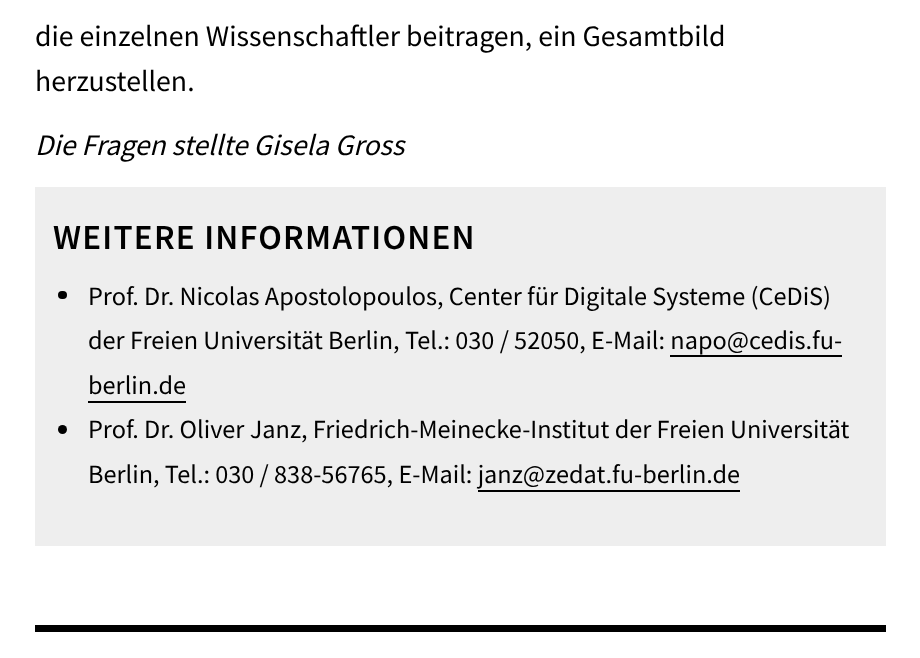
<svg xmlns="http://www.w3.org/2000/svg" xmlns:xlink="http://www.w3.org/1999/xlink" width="920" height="658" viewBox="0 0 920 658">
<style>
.cls-1{font:29.75px Source Sans Pro;fill:#000000}
.cls-2{font:italic 29.75px Source Sans Pro;fill:#000000}
.cls-3{font:600 35px Source Sans Pro;letter-spacing:1.25px;fill:#000000}
.cls-4{font:26.25px Source Sans Pro;fill:#000000}
</style>
<rect width="100%" height="100%" fill="#ffffff"/>
<rect fill="#eeeeee" x="35" y="187" width="851" height="359"/>
<rect fill="#000000" x="58" y="291" width="9" height="8" rx="4"/>
<rect fill="#000000" x="670" y="355" width="172" height="2"/>
<rect fill="#000000" x="88" y="401" width="98" height="2"/>
<circle fill="#000000" cx="62.5" cy="429.5" r="4.5"/>
<rect fill="#000000" x="478" y="490" width="262" height="2"/>
<rect fill="#000000" x="35" y="625" width="851" height="7"/>
<text class="cls-1"><tspan x="35" y="46">die einzelnen Wissenschaftler beitragen, ein Gesamtbild</tspan><tspan x="35" y="91">herzustellen.</tspan></text>
<text class="cls-2" x="35" y="155">Die Fragen stellte Gisela Gross</text>
<text class="cls-3" x="53" y="249">WEITERE INFORMATIONEN</text>
<text class="cls-4"><tspan x="88" y="305">Prof. Dr. Nicolas Apostolopoulos, Center für Digitale Systeme (CeDiS)</tspan><tspan x="88" y="349">der Freien Universität Berlin, Tel.: 030 / 52050, E-Mail: napo@cedis.fu-</tspan><tspan x="88" y="394">berlin.de</tspan><tspan x="88" y="438">Prof. Dr. Oliver Janz, Friedrich-Meinecke-Institut der Freien Universität</tspan><tspan x="88" y="483">Berlin, Tel.: 030 / 838-56765, E-Mail: janz@zedat.fu-berlin.de</tspan></text>
</svg>
